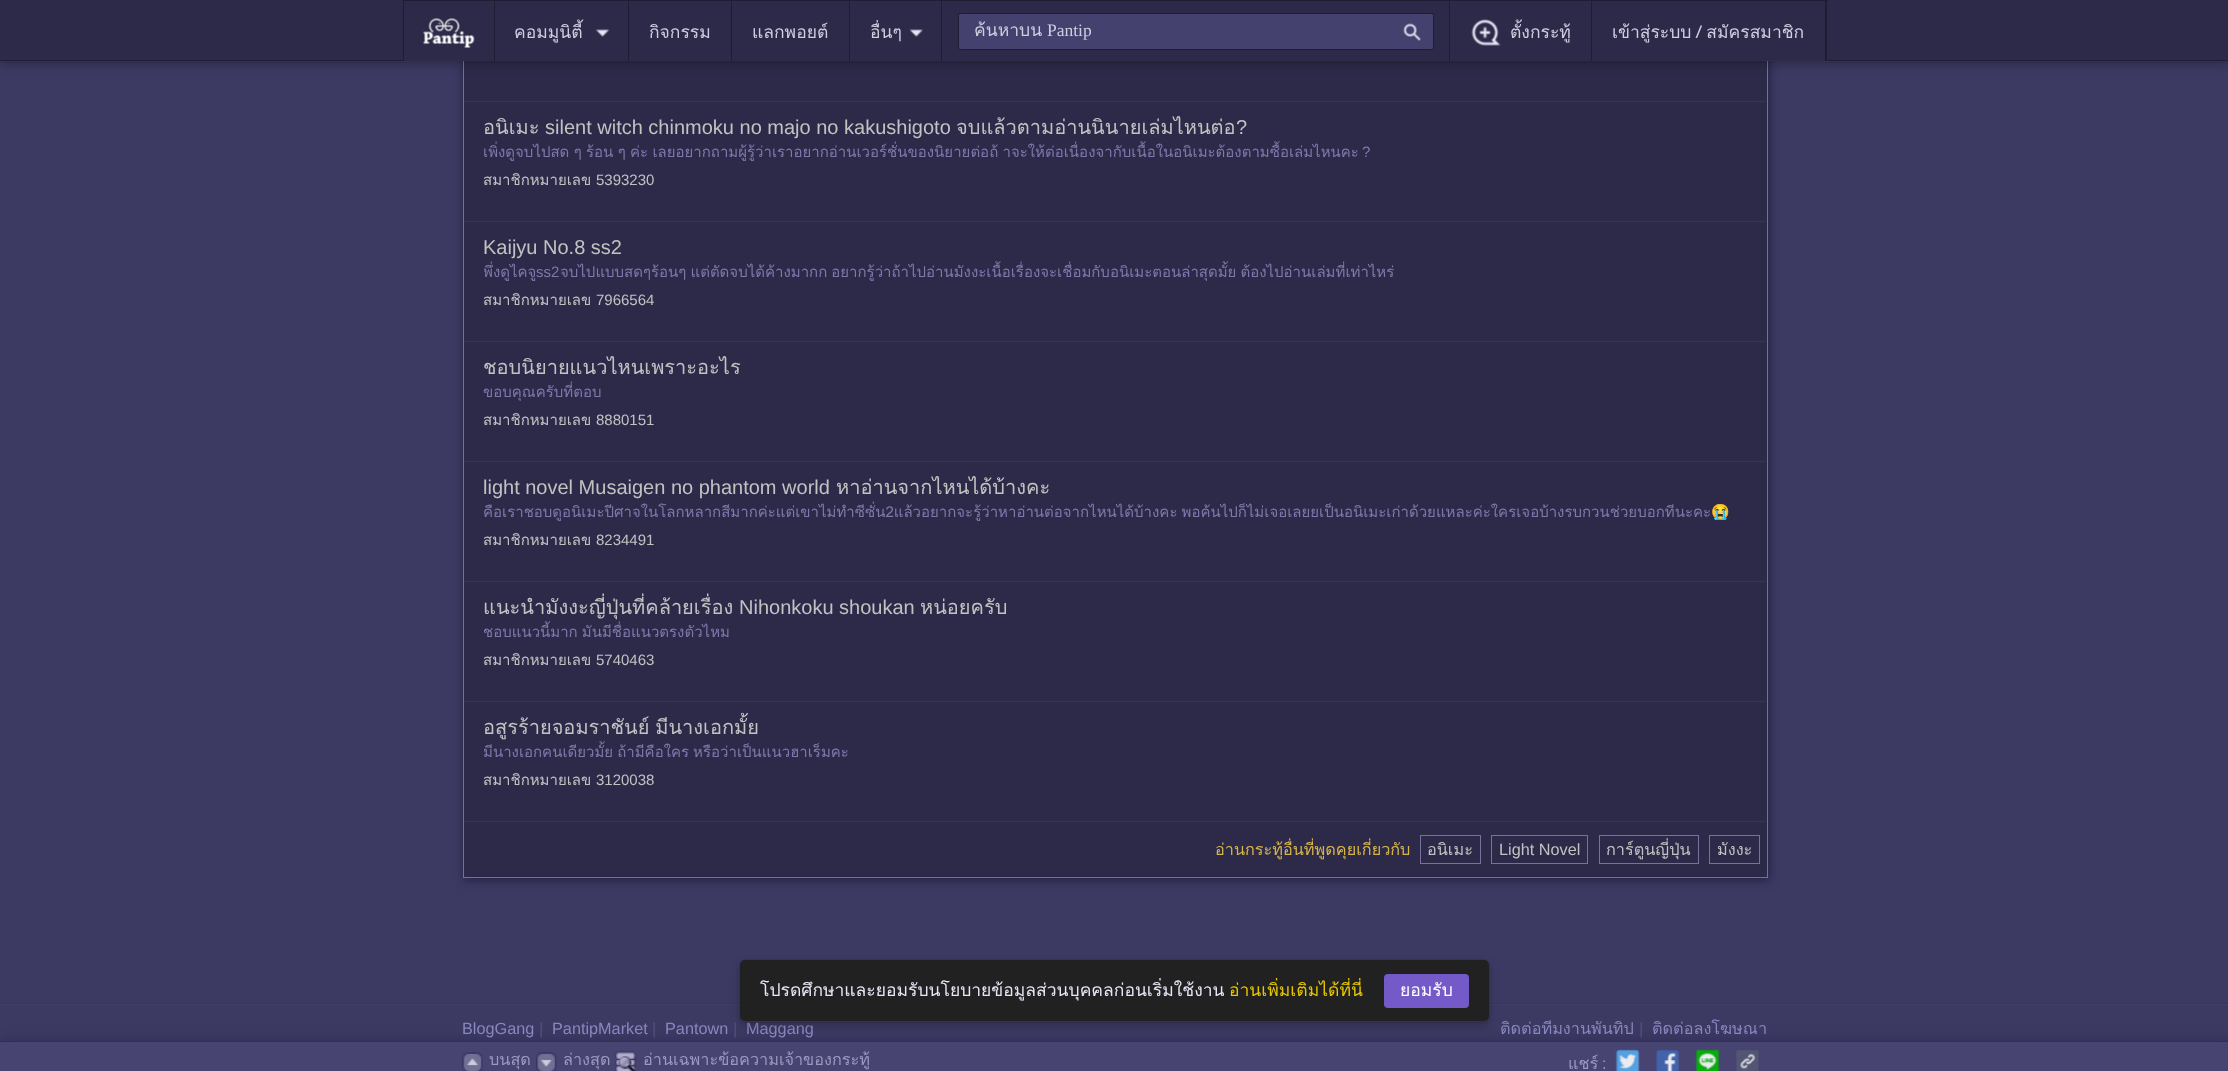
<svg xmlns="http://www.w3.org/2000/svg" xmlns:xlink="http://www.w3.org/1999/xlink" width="2228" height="1071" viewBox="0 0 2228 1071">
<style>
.cls-1{font:17.5px Loma;fill:#d1cde0}
.cls-2{font:17.5px Liberation Serif;fill:#d1cde0}
.cls-3{font:20px Loma;fill:#c2c2c2}
.cls-4{font:20px Liberation Sans;fill:#c2c2c2}
.cls-5{font:15px Loma;fill:#7e79ad}
.cls-6{font:15px Liberation Sans;fill:#7e79ad}
.cls-7{font:15px Loma;fill:#c2c2c2}
.cls-8{font:15px Liberation Sans;fill:#c2c2c2}
.cls-9{font:15px Noto Color Emoji;fill:#7e79ad}
.cls-10{font:16.25px Loma;fill:#d6b549}
.cls-11{font:16.25px Loma;fill:#c2c2c2}
.cls-12{font:16.25px Liberation Sans;fill:#c2c2c2}
.cls-13{font:16.25px Liberation Sans;fill:#8a86bf}
.cls-14{font:16.25px Liberation Sans;fill:#535085}
.cls-15{font:17.5px Loma;fill:#ffffff}
.cls-16{font:17.5px Loma;fill:#e5c700}
.cls-17{font:17.5px Loma;fill:#e9e5f6}
.cls-18{font:16.25px Loma;fill:#8a86bf}
.cls-19{font:16.25px Loma;fill:#9b99c1}
.cls-20{font:16.25px Liberation Sans;fill:#9b99c1}
</style>
<defs>
<clipPath id="clip1"><rect x="484" y="141" width="1262" height="23"/></clipPath>
<clipPath id="clip2"><rect x="484" y="261" width="1262" height="23"/></clipPath>
<clipPath id="clip3"><rect x="484" y="501" width="1262" height="23"/></clipPath>
<clipPath id="clip4"><rect x="484" y="741" width="1262" height="23"/></clipPath>
</defs>
<rect width="100%" height="100%" fill="#3c3963"/>
<rect fill="#221f40" filter="blur(5px)" x="464" y="-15" width="1305" height="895"/>
<rect fill="none" stroke="#6c73a6" x="463.5" y="-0.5" width="1304" height="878"/>
<rect fill="#2d2a49" x="464" y="61" width="1302" height="762"/>
<rect fill="none" stroke="#000000" stroke-opacity="0.08" x="-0.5" y="-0.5" width="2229" height="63"/>
<rect fill="#000000" fill-opacity="0.2" filter="blur(5px)" x="0" y="4" width="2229" height="61"/>
<rect fill="#2d2a49" x="0" y="0" width="2228" height="60"/>
<rect fill="#1f1d33" x="0" y="60" width="2228" height="1"/>
<rect fill="#2d2a49" x="404" y="60" width="1424" height="1"/>
<rect fill="#1f1d33" x="403" y="0" width="1425" height="1"/>
<rect fill="#1f1d33" x="1826" y="0" width="1" height="61"/>
<rect fill="#1f1d33" x="403" y="0" width="1" height="61"/>
<rect fill="#1f1d33" x="494" y="1" width="1" height="60"/>
<image xlink:href="image0.png" x="423" y="18" width="52" height="30"/>
<rect fill="#1f1d33" x="628" y="1" width="1" height="60"/>
<image xlink:href="image1.png" x="595" y="29" width="15" height="8"/>
<rect fill="#1f1d33" x="731" y="1" width="1" height="60"/>
<rect fill="#1f1d33" x="849" y="1" width="1" height="60"/>
<rect fill="#1f1d33" x="941" y="1" width="1" height="60"/>
<image xlink:href="image2.png" x="909" y="29" width="14" height="8"/>
<rect fill="#1f1d33" x="1449" y="1" width="1" height="60"/>
<rect fill="#44416f" stroke="#1f1d33" x="958.5" y="13.5" width="475" height="36" rx="2"/>
<image xlink:href="image3.png" x="1403" y="23" width="18" height="18"/>
<rect fill="#1f1d33" x="1591" y="1" width="1" height="60"/>
<image xlink:href="image4.png" x="1471" y="19" width="30" height="27"/>
<rect fill="#1f1d33" x="1825" y="1" width="1" height="60"/>
<rect fill="#363358" x="464" y="101" width="1302" height="1"/>
<rect fill="#363358" x="464" y="221" width="1302" height="1"/>
<rect fill="#363358" x="464" y="341" width="1302" height="1"/>
<rect fill="#363358" x="464" y="461" width="1302" height="1"/>
<rect fill="#363358" x="464" y="581" width="1302" height="1"/>
<rect fill="#363358" x="464" y="701" width="1302" height="1"/>
<rect fill="#363358" x="464" y="821" width="1302" height="1"/>
<rect fill="#2d2a49" x="464" y="823" width="1302" height="53"/>
<rect fill="none" stroke="#75729b" x="1420.5" y="835.5" width="60" height="28"/>
<rect fill="none" stroke="#75729b" x="1491.5" y="835.5" width="96" height="28"/>
<rect fill="none" stroke="#75729b" x="1599.5" y="835.5" width="99" height="28"/>
<rect fill="none" stroke="#75729b" x="1709.5" y="835.5" width="50" height="28"/>
<rect fill="#38355c" x="0" y="1003" width="2228" height="1"/>
<rect fill="#413e6b" x="0" y="1004" width="2228" height="1"/>
<rect fill="#302e59" fill-opacity="0.9" filter="blur(5px)" x="0" y="1040" width="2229" height="30"/>
<rect fill="#474471" x="0" y="1042" width="2228" height="29"/>
<rect fill="#302e61" x="0" y="1041" width="2228" height="1"/>
<image xlink:href="image5.png" x="462" y="1052" width="21" height="19"/>
<image xlink:href="image6.png" x="536" y="1052" width="21" height="19"/>
<image xlink:href="image7.png" x="615" y="1051" width="22" height="20"/>
<image xlink:href="image8.png" x="1615" y="1049" width="25" height="22"/>
<image xlink:href="image9.png" x="1656" y="1049" width="24" height="22"/>
<image xlink:href="image10.png" x="1695" y="1049" width="25" height="22"/>
<image xlink:href="image11.png" x="1736" y="1050" width="23" height="21"/>
<text class="cls-1" x="514" y="38">คอมมูนิตี้</text>
<text class="cls-1" x="649" y="38">กิจกรรม</text>
<text class="cls-1" x="752" y="38">แลกพอยต์</text>
<text class="cls-1" x="870" y="38">อื่นๆ</text>
<text class="cls-1" x="974" y="36">ค้นหาบน</text>
<text class="cls-2" x="1047" y="36">Pantip</text>
<text class="cls-1" x="1510" y="38">ตั้งกระทู้</text>
<text class="cls-1" x="1612" y="38" word-spacing="-1">เข้าสู่ระบบ / สมัครสมาชิก</text>
<text class="cls-3" x="483" y="134">อนิเมะ</text>
<text class="cls-4" x="545" y="134">silent witch chinmoku no majo no kakushigoto</text>
<text class="cls-3" x="956" y="134">จบแล้วตามอ่านนินายเล่มไหนต่อ</text>
<text class="cls-4" x="1236" y="134">?</text>
<g clip-path="url(#clip1)">
<text class="cls-5" x="483" y="157" word-spacing="-0.75">เพิ่งดูจบไปสด ๆ ร้อน ๆ ค่ะ เลยอยากถามผู้รู้ว่าเราอยากอ่านเวอร์ชั่นของนิยายต่อถ้ าจะให้ต่อเนื่องจากับเนื้อในอนิเมะต้องตามซื้อเล่มไหนคะ</text>
</g>
<text class="cls-6" x="1362" y="157">?</text>
<text class="cls-7" x="483" y="185">สมาชิกหมายเลข</text>
<text class="cls-8" x="596" y="185">5393230</text>
<text class="cls-4" x="483" y="254">Kaijyu No.8 ss2</text>
<g clip-path="url(#clip2)">
<text class="cls-5" x="483" y="277">พึ่งดูไคจู</text>
</g>
<text class="cls-6" x="536" y="277">ss2</text>
<text class="cls-5" x="560" y="277" word-spacing="-1">จบไปแบบสดๆร้อนๆ แต่ตัดจบได้ค้างมากก อยากรู้ว่าถ้าไปอ่านมังงะเนื้อเรื่องจะเชื่อมกับอนิเมะตอนล่าสุดมั้ย ต้องไปอ่านเล่มที่เท่าไหร่</text>
<text class="cls-7" x="483" y="305">สมาชิกหมายเลข</text>
<text class="cls-8" x="596" y="305">7966564</text>
<text class="cls-3" x="483" y="374">ชอบนิยายแนวไหนเพราะอะไร</text>
<text class="cls-5" x="483" y="397">ขอบคุณครับที่ตอบ</text>
<text class="cls-7" x="483" y="425">สมาชิกหมายเลข</text>
<text class="cls-8" x="596" y="425">8880151</text>
<text class="cls-4" x="483" y="494">light novel Musaigen no phantom world</text>
<text class="cls-3" x="836" y="494">หาอ่านจากไหนได้บ้างคะ</text>
<g clip-path="url(#clip3)">
<text class="cls-5" x="483" y="517" word-spacing="-1">คือเราชอบดูอนิเมะปีศาจในโลกหลากสีมากค่ะแต่เขาไม่ทำซีซั่น2แล้วอยากจะรู้ว่าหาอ่านต่อจากไหนได้บ้างคะ พอค้นไปก็ไม่เจอเลยยเป็นอนิเมะเก่าด้วยแหละค่ะใครเจอบ้างรบกวนช่วยบอกทีนะคะ</text>
</g>
<text class="cls-9" x="1711" y="517">😭</text>
<text class="cls-7" x="483" y="545">สมาชิกหมายเลข</text>
<text class="cls-8" x="596" y="545">8234491</text>
<text class="cls-3" x="483" y="614">แนะนำมังงะญี่ปุ่นที่คล้ายเรื่อง</text>
<text class="cls-4" x="739" y="614">Nihonkoku shoukan</text>
<text class="cls-3" x="920" y="614">หน่อยครับ</text>
<text class="cls-5" x="483" y="637" word-spacing="-1">ชอบแนวนี้มาก มันมีชื่อแนวตรงตัวไหม</text>
<text class="cls-7" x="483" y="665">สมาชิกหมายเลข</text>
<text class="cls-8" x="596" y="665">5740463</text>
<text class="cls-3" x="483" y="734" word-spacing="-1">อสูรร้ายจอมราชันย์ มีนางเอกมั้ย</text>
<g clip-path="url(#clip4)">
<text class="cls-5" x="483" y="757" word-spacing="-1">มีนางเอกคนเดียวมั้ย ถ้ามีคือใคร หรือว่าเป็นแนวฮาเร็มคะ</text>
</g>
<text class="cls-7" x="483" y="785">สมาชิกหมายเลข</text>
<text class="cls-8" x="596" y="785">3120038</text>
<text class="cls-10" x="1215" y="855">อ่านกระทู้อื่นที่พูดคุยเกี่ยวกับ</text>
<text class="cls-11" x="1427" y="855">อนิเมะ</text>
<text class="cls-12" x="1499" y="855">Light Novel</text>
<text class="cls-11" x="1606" y="855">การ์ตูนญี่ปุ่น</text>
<text class="cls-11" x="1717" y="855">มังงะ</text>
<text class="cls-13" x="462" y="1034">BlogGang</text>
<text class="cls-14" x="539" y="1034">|</text>
<text class="cls-13" x="552" y="1034">PantipMarket</text>
<text class="cls-14" x="652" y="1034">|</text>
<text class="cls-13" x="665" y="1034">Pantown</text>
<text class="cls-14" x="733" y="1034">|</text>
<text class="cls-13" x="746" y="1034">Maggang</text>
<rect fill="none" stroke="#000000" stroke-opacity="0.08" x="739.5" y="959.5" width="750" height="63" rx="5.5"/>
<rect fill="#000000" fill-opacity="0.2" filter="blur(5px)" x="740" y="964" width="749" height="61" rx="5"/>
<rect fill="#212121" x="740" y="960" width="749" height="61" rx="5"/>
<rect fill="#7459c8" x="1384" y="974" width="85" height="34" rx="4"/>
<text class="cls-15" x="1400" y="996">ยอมรับ</text>
<text class="cls-16" x="1229" y="996">อ่านเพิ่มเติมได้ที่นี่</text>
<text class="cls-17" x="760" y="996">โปรดศึกษาและยอมรับนโยบายข้อมูลส่วนบุคคลก่อนเริ่มใช้งาน</text>
<text class="cls-18" x="1500" y="1034">ติดต่อทีมงานพันทิป</text>
<text class="cls-14" x="1639" y="1034">|</text>
<text class="cls-18" x="1652" y="1034">ติดต่อลงโฆษณา</text>
<text class="cls-19" x="489" y="1065">บนสุด</text>
<text class="cls-19" x="563" y="1065">ล่างสุด</text>
<text class="cls-19" x="643" y="1065">อ่านเฉพาะข้อความเจ้าของกระทู้</text>
<text class="cls-19" x="1568" y="1069">แชร์</text>
<text class="cls-20" x="1602" y="1069">:</text>
</svg>
